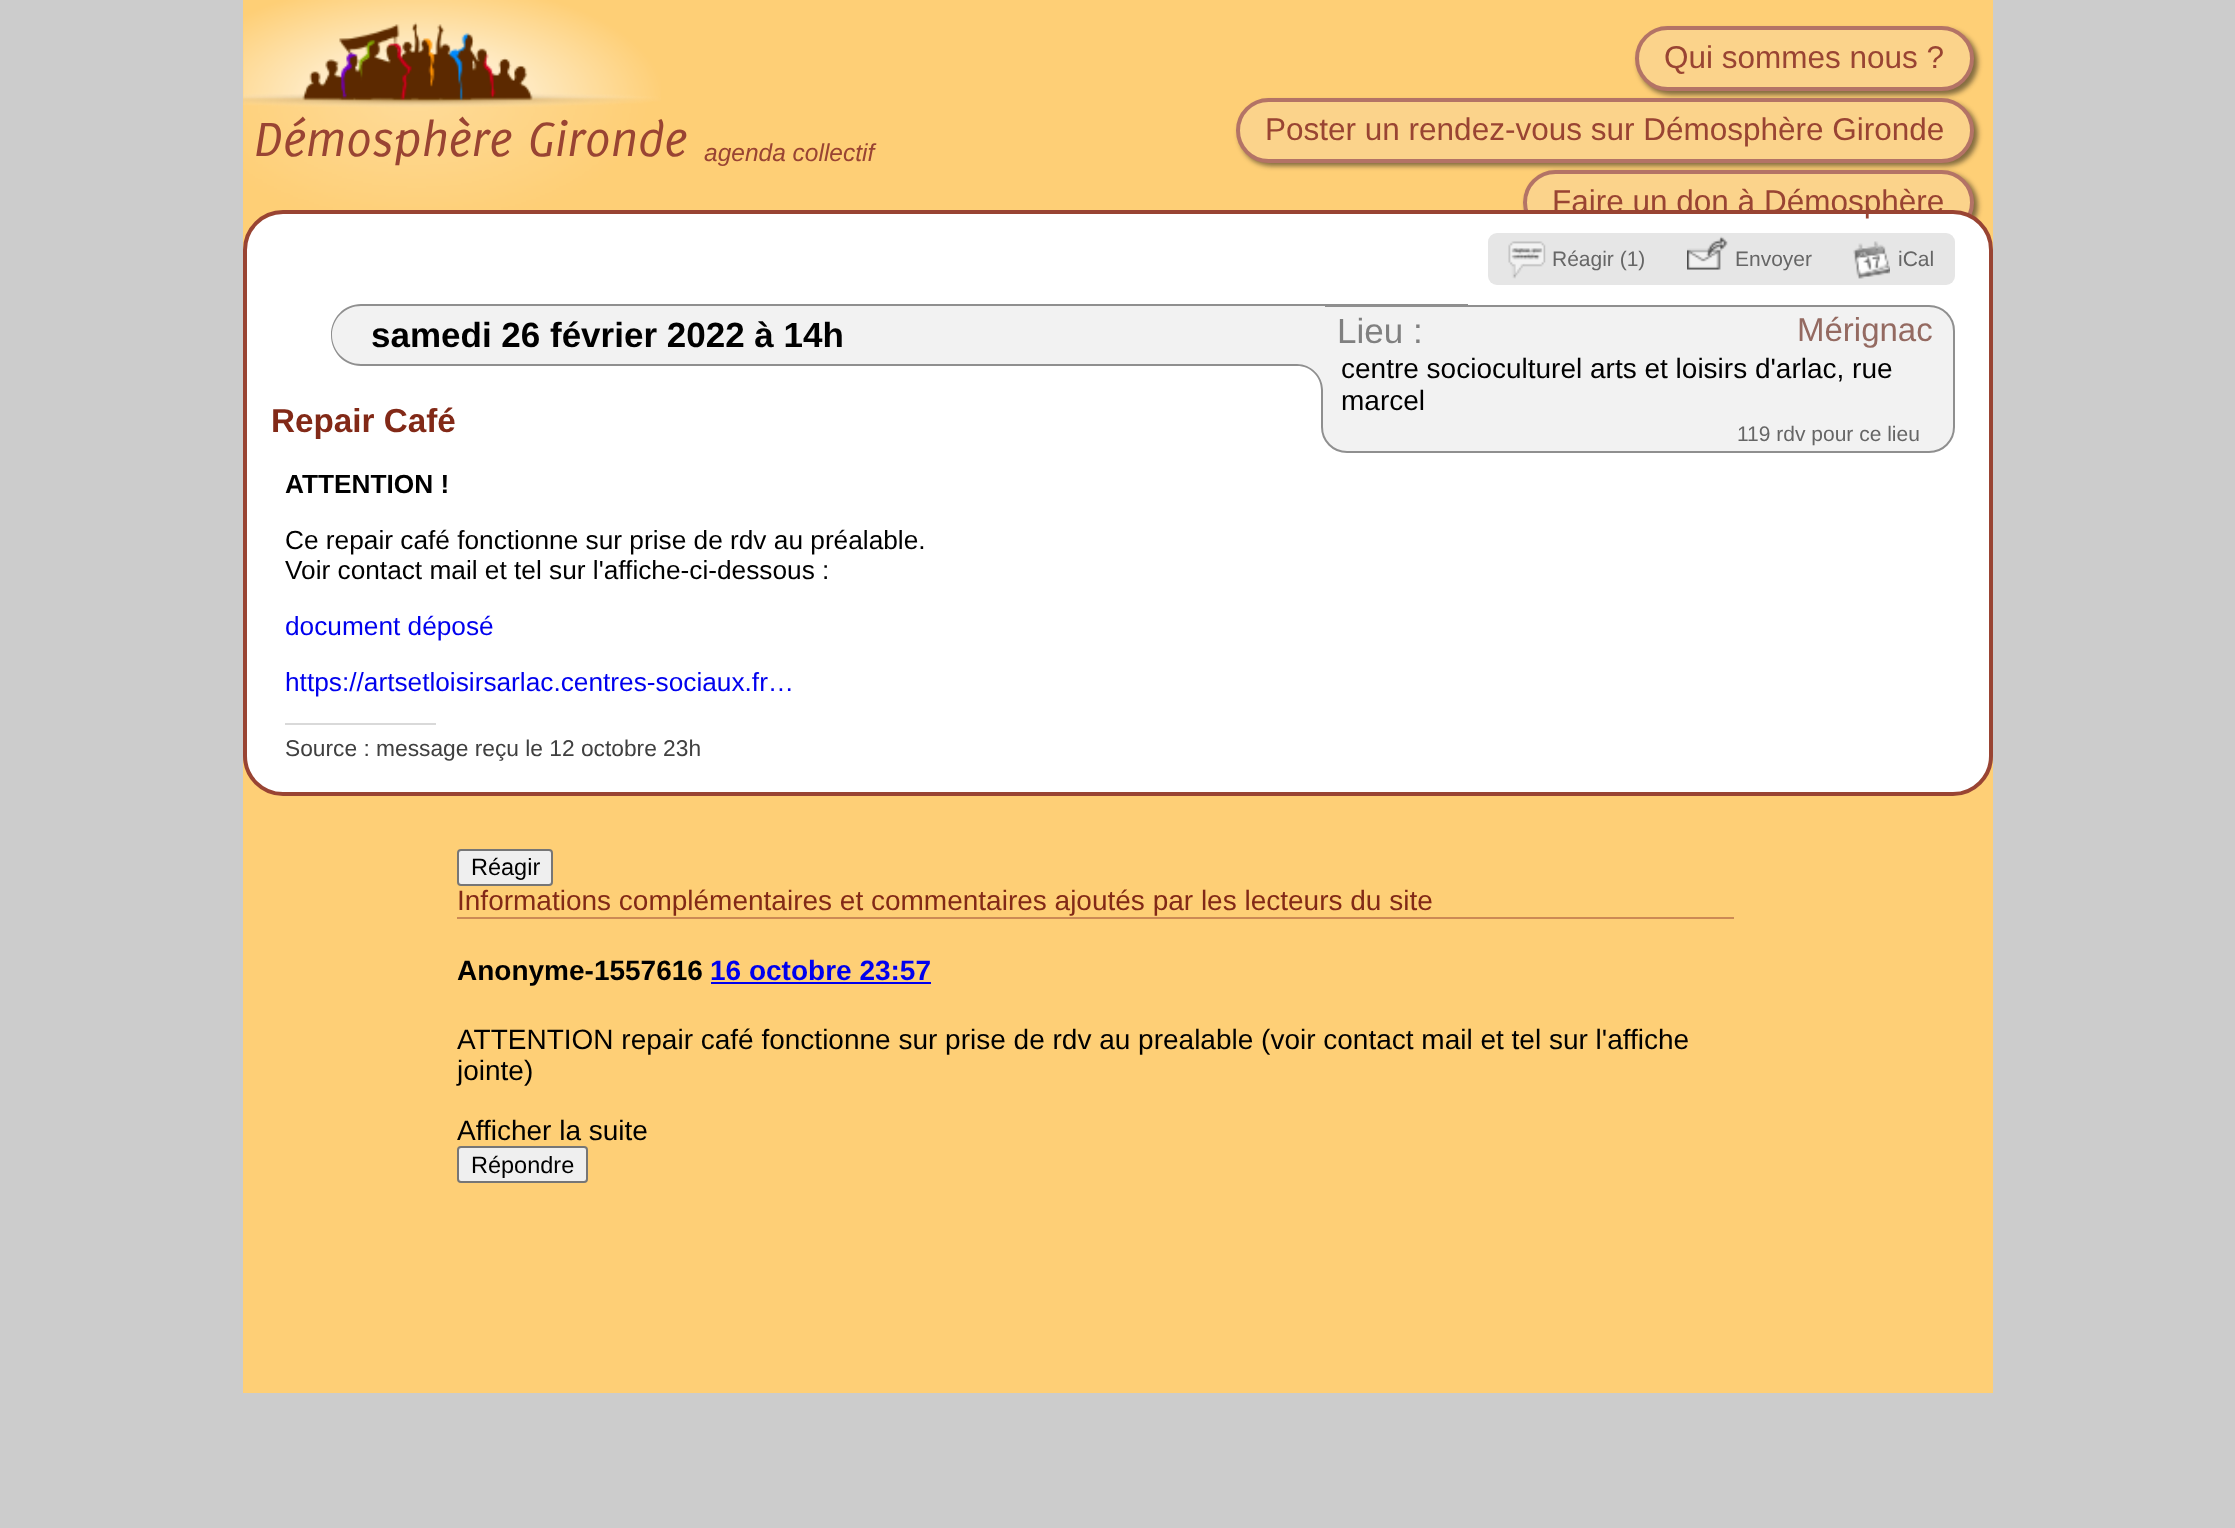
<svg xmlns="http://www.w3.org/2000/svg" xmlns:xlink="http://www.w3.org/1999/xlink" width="2235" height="1528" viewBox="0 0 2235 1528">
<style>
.cls-1{font:italic 500 52.5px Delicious;fill:#994433}
.cls-2{font:italic 24.5px Liberation Sans;fill:#994433}
.cls-3{font:31.5px Liberation Sans;fill:#994433}
.cls-4{font:21px Liberation Sans;fill:#666666}
.cls-5{font:bold 35px Liberation Sans;fill:#000000}
.cls-6{font:35px Liberation Sans;fill:#808080}
.cls-7{font:33px Liberation Sans;fill:#946a61}
.cls-8{font:28px Liberation Sans;fill:#000000}
.cls-9{font:bold 33.25px Liberation Sans;fill:#822917}
.cls-10{font:bold 26.25px Liberation Sans;fill:#000000}
.cls-11{font:26.25px Liberation Sans;fill:#000000}
.cls-12{font:26.25px Liberation Sans;fill:#0000ee}
.cls-13{font:22.75px Liberation Sans;fill:#404040}
.cls-14{font:23.5px Liberation Sans;fill:#000000}
.cls-15{font:28px Liberation Sans;fill:#822917}
.cls-16{font:bold 28px Liberation Sans;fill:#000000}
.cls-17{font:bold 28px Liberation Sans;fill:#0000ee}
</style>
<rect width="100%" height="100%" fill="#cccccc"/>
<rect fill="#fecf76" x="243" y="0" width="1750" height="1393"/>
<image xlink:href="image0.png" x="243" y="0" width="418" height="210"/>
<rect fill="#0a0a0a" fill-opacity="0.5" filter="blur(2.5px)" x="1638" y="30" width="340" height="65" rx="32.5"/>
<rect fill="#fbd38b" stroke="#b37366" stroke-width="4" x="1637" y="28" width="335" height="61" rx="30.5"/>
<rect fill="#0a0a0a" fill-opacity="0.5" filter="blur(2.5px)" x="1239" y="102" width="739" height="64" rx="32"/>
<rect fill="#fbd38b" stroke="#b37366" stroke-width="4" x="1238" y="100" width="734" height="61" rx="30.5"/>
<rect fill="#0a0a0a" fill-opacity="0.5" filter="blur(2.5px)" x="1526" y="173" width="452" height="65" rx="32.5"/>
<rect fill="#fbd38b" stroke="#b37366" stroke-width="4" x="1525" y="172" width="447" height="61" rx="30.5"/>
<rect fill="#ffffff" stroke="#994433" stroke-width="4" x="245" y="212" width="1746" height="582" rx="38"/>
<rect fill="#e6e6e6" x="1488" y="233" width="467" height="52" rx="9"/>
<image xlink:href="image1.png" x="1508" y="241" width="38" height="38"/>
<image xlink:href="image2.png" x="1687" y="236" width="41" height="34"/>
<image xlink:href="image3.png" x="1853" y="241" width="37" height="38"/>
<path fill="#f2f2f2" d="M361.5 305H1468V366H361.5C344.5 366 331 352.5 331 335.5C331 318.5 344.5 305 361.5 305Z"/>
<path fill="#8f8f8f" fill-rule="evenodd" d="M361 304H1468V366H361C344 366 331 352 331 335C331 318 344 304 361 304ZM361 306H1468V364H361C345 364 332 351 332 335C332 319 345 306 361 306Z"/>
<path fill="#f2f2f2" stroke="#8f8f8f" stroke-width="2" d="M1322 306H1929C1943 306 1954 317 1954 331V427C1954 441 1943 452 1929 452H1347C1333 452 1322 441 1322 427Z"/>
<rect fill="#f2f2f2" x="1297" y="306" width="28" height="86"/>
<path fill="#ffffff" d="M1297 364C1311.5 364 1323 375.5 1323 390V392H1297Z"/>
<path fill="#8f8f8f" fill-rule="evenodd" d="M1297 364C1311 364 1323 376 1323 390V392H1297ZM1297 366C1310.5 366 1321 376.5 1321 390V392H1297Z"/>
<rect fill="#d9d9d9" x="285" y="723" width="151" height="2"/>
<rect fill="#efefef" stroke="#767676" stroke-width="2" x="458" y="850" width="94" height="35" rx="3"/>
<rect fill="#cc8a55" x="457" y="917" width="1277" height="2"/>
<rect fill="#0000ee" x="711" y="982" width="220" height="2"/>
<rect fill="#efefef" stroke="#767676" stroke-width="2" x="458" y="1147" width="129" height="35" rx="3"/>
<text class="cls-1" x="254" y="156">Démosphère Gironde</text>
<text class="cls-2" x="704" y="161">agenda collectif</text>
<text class="cls-3" x="1664" y="68">Qui sommes nous ?</text>
<text class="cls-3" x="1265" y="140">Poster un rendez-vous sur Démosphère Gironde</text>
<text class="cls-3" x="1552" y="212">Faire un don à Démosphère</text>
<text class="cls-4" x="1552" y="266">Réagir (1)</text>
<text class="cls-4" x="1735" y="266">Envoyer</text>
<text class="cls-4" x="1898" y="266">iCal</text>
<text class="cls-5" x="371" y="347">samedi 26 février 2022 à 14h</text>
<text class="cls-6" x="1337" y="343">Lieu :</text>
<text class="cls-7" x="1797" y="341">Mérignac</text>
<text class="cls-8"><tspan x="1341" y="378">centre socioculturel arts et loisirs d'arlac, rue</tspan><tspan x="1341" y="410">marcel</tspan></text>
<text class="cls-4" x="1737" y="441">119 rdv pour ce lieu</text>
<text class="cls-9" x="271" y="432">Repair Café</text>
<text class="cls-10" x="285" y="493">ATTENTION !</text>
<text class="cls-11"><tspan x="285" y="549">Ce repair café fonctionne sur prise de rdv au préalable.</tspan><tspan x="285" y="579">Voir contact mail et tel sur l'affiche-ci-dessous :</tspan></text>
<text class="cls-12" x="285" y="635">document déposé</text>
<text class="cls-12" x="285" y="691">https://artsetloisirsarlac.centres-sociaux.fr…</text>
<text class="cls-13" x="285" y="756">Source : message reçu le 12 octobre 23h</text>
<text class="cls-14" x="471" y="875">Réagir</text>
<text class="cls-15" x="457" y="910">Informations complémentaires et commentaires ajoutés par les lecteurs du site</text>
<text class="cls-16" x="457" y="980">Anonyme-1557616</text>
<text class="cls-17" x="710" y="980">16 octobre 23:57</text>
<text class="cls-8"><tspan x="457" y="1049">ATTENTION repair café fonctionne sur prise de rdv au prealable (voir contact mail et tel sur l'affiche</tspan><tspan x="457" y="1080">jointe)</tspan></text>
<text class="cls-8" x="457" y="1140">Afficher la suite</text>
<text class="cls-14" x="471" y="1173">Répondre</text>
</svg>
